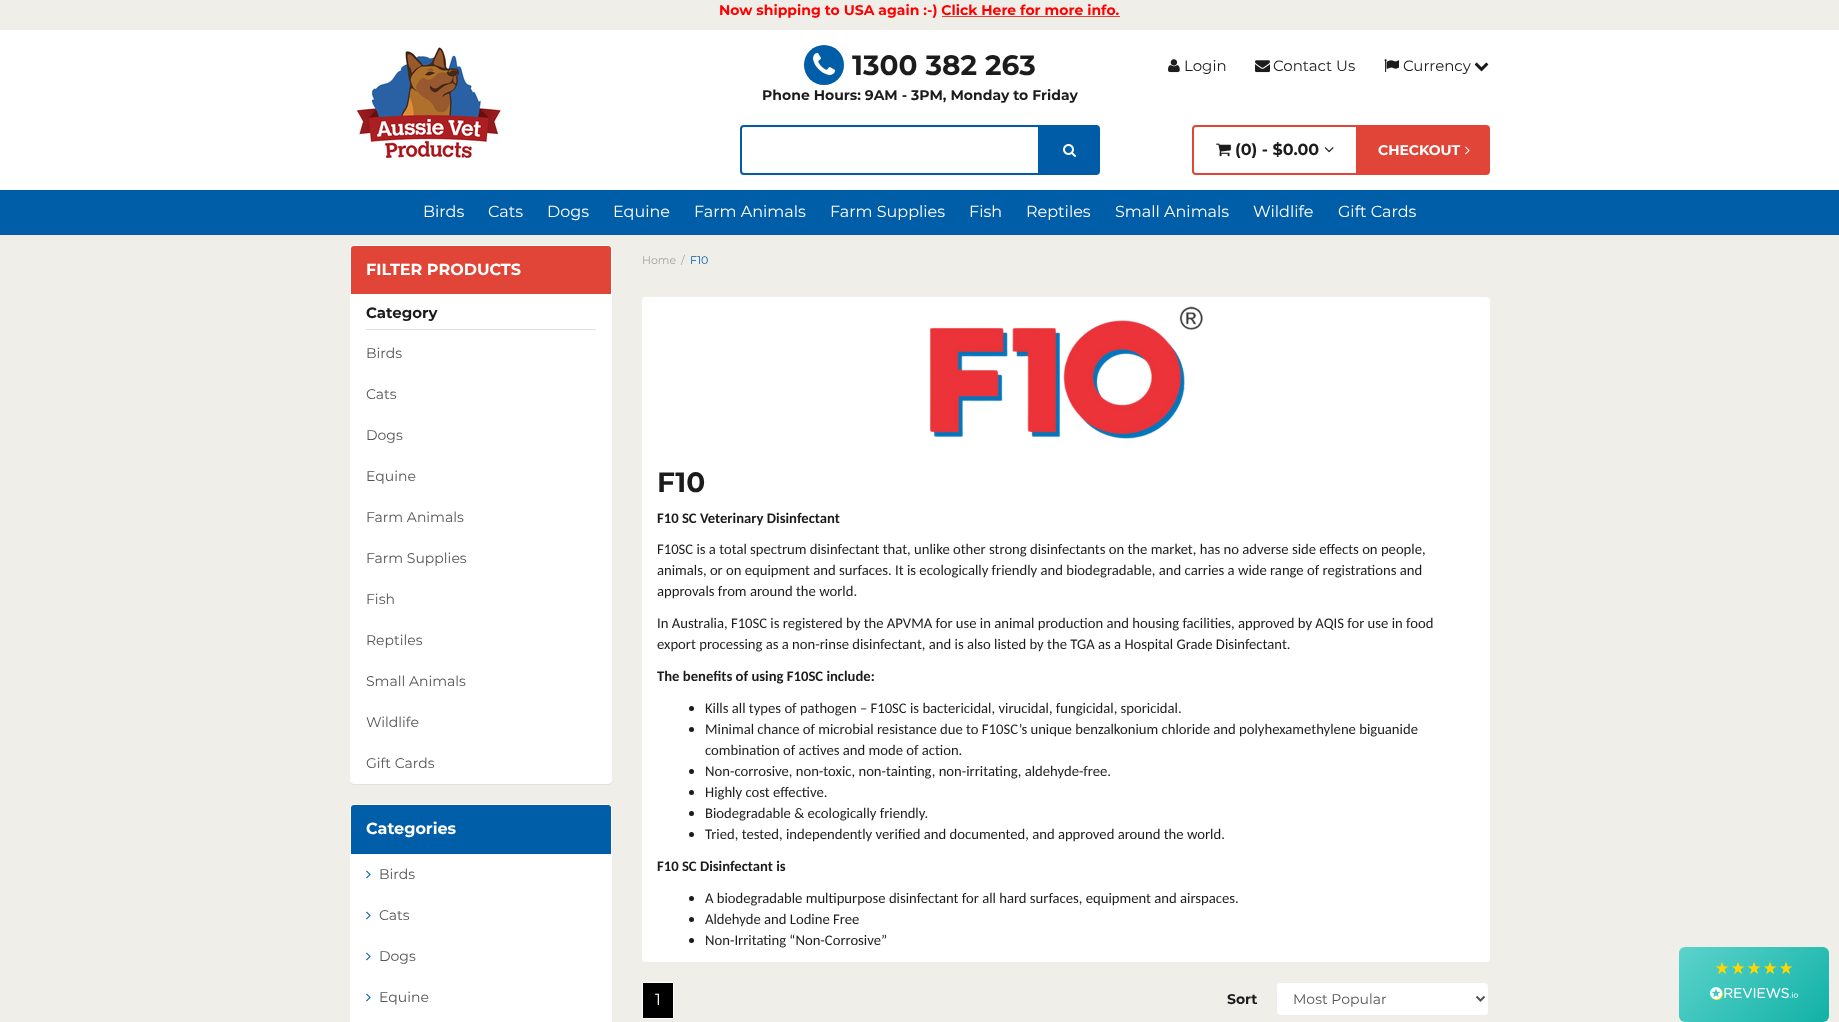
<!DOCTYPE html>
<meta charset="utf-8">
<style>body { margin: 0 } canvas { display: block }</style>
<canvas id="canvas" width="1839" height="1022"></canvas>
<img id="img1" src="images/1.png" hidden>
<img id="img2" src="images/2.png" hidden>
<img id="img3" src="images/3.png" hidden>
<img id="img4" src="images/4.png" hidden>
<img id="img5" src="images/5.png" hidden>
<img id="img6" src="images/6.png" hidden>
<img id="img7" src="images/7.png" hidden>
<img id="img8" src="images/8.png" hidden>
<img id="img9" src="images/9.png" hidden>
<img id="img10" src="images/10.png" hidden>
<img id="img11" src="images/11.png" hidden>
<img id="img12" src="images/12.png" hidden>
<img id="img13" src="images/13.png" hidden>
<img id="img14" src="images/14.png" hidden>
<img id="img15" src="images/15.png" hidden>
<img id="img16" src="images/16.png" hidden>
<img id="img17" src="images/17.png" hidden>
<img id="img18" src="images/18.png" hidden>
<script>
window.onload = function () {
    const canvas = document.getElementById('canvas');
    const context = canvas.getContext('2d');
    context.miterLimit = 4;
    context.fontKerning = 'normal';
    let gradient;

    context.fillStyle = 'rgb(240, 238, 233)';
    context.fillRect(0, 0, 1839, 1022);
    context.fillStyle = 'rgb(255, 255, 255)';
    context.fillRect(0, 30, 1839, 160);
    context.drawImage(document.getElementById('img1'), 356, 47, 145, 112);
    context.fillStyle = 'rgb(0, 93, 168)';
    context.beginPath();
    context.arc(824, 65, 20, 0, 2 * Math.PI);
    context.fill();
    context.drawImage(document.getElementById('img2'), 813, 53, 22, 22);
    context.drawImage(document.getElementById('img3'), 1168, 59, 12, 14);
    context.drawImage(document.getElementById('img4'), 1255, 60, 15, 13);
    context.drawImage(document.getElementById('img5'), 1384, 59, 15, 14);
    context.drawImage(document.getElementById('img6'), 1474, 62, 15, 10);
    context.fillStyle = 'rgb(0, 92, 167)';
    context.beginPath();
    context.roundRect(1040, 126, 59, 48, [0, 3, 3, 0]);
    context.fill();
    context.strokeStyle = 'rgb(0, 92, 167)';
    context.lineWidth = 2;
    context.stroke();
    context.fillStyle = 'rgb(255, 255, 255)';
    context.beginPath();
    context.roundRect(741, 126, 298, 48, [3, 0, 0, 3]);
    context.fill();
    context.stroke();
    context.drawImage(document.getElementById('img7'), 1063, 144, 13, 13);
    context.beginPath();
    context.roundRect(1193, 126, 164, 48, [3, 0, 0, 3]);
    context.strokeStyle = 'rgb(225, 69, 55)';
    context.stroke();
    context.drawImage(document.getElementById('img8'), 1216, 143, 15, 14);
    context.drawImage(document.getElementById('img9'), 1324, 147, 10, 6);
    context.fillStyle = 'rgb(225, 69, 55)';
    context.beginPath();
    context.roundRect(1359, 126, 130, 48, [0, 3, 3, 0]);
    context.fill();
    context.stroke();
    context.drawImage(document.getElementById('img10'), 1465, 146, 5, 9);
    context.fillStyle = 'rgb(0, 93, 168)';
    context.fillRect(0, 190, 1839, 45);
    context.fillStyle = 'rgba(0, 0, 0, 0.05)';
    context.filter = 'blur(0.5px)';
    context.beginPath();
    context.roundRect(350, 246, 262, 539, 4);
    context.fill();
    context.filter = 'none';
    context.fillStyle = 'rgb(255, 255, 255)';
    context.beginPath();
    context.roundRect(350.5, 245.5, 261, 538, 3.5);
    context.fill();
    context.strokeStyle = 'rgb(255, 255, 255)';
    context.lineWidth = 1;
    context.stroke();
    context.fillStyle = 'rgb(225, 69, 55)';
    context.beginPath();
    context.roundRect(351, 246, 260, 48, [3, 3, 0, 0]);
    context.fill();
    context.fillStyle = 'rgb(228, 225, 218)';
    context.fillRect(366, 329, 230, 1);
    context.fillStyle = 'rgb(255, 255, 255)';
    context.beginPath();
    context.roundRect(350.5, 804.5, 261, 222, 3.5);
    context.fill();
    context.stroke();
    context.fillStyle = 'rgb(0, 93, 168)';
    context.beginPath();
    context.roundRect(351, 805, 260, 49, [3, 3, 0, 0]);
    context.fill();
    context.drawImage(document.getElementById('img11'), 366, 870, 5, 9);
    context.drawImage(document.getElementById('img11'), 366, 911, 5, 9);
    context.drawImage(document.getElementById('img11'), 366, 952, 5, 9);
    context.drawImage(document.getElementById('img11'), 366, 993, 5, 9);
    context.fillStyle = 'rgb(255, 255, 255)';
    context.beginPath();
    context.roundRect(642, 297, 848, 665, 4);
    context.fill();
    context.drawImage(document.getElementById('img12'), 929, 306, 274, 133);
    context.fillStyle = 'rgb(28, 28, 28)';
    context.beginPath();
    context.arc(691.5, 708.5, 2.5, 0, 2 * Math.PI);
    context.fill();
    context.beginPath();
    context.arc(691.5, 729.5, 2.5, 0, 2 * Math.PI);
    context.fill();
    context.beginPath();
    context.arc(691.5, 771.5, 2.5, 0, 2 * Math.PI);
    context.fill();
    context.beginPath();
    context.arc(691.5, 792.5, 2.5, 0, 2 * Math.PI);
    context.fill();
    context.beginPath();
    context.arc(691.5, 813.5, 2.5, 0, 2 * Math.PI);
    context.fill();
    context.beginPath();
    context.arc(691.5, 834.5, 2.5, 0, 2 * Math.PI);
    context.fill();
    context.beginPath();
    context.arc(691.5, 898.5, 2.5, 0, 2 * Math.PI);
    context.fill();
    context.beginPath();
    context.arc(691.5, 919.5, 2.5, 0, 2 * Math.PI);
    context.fill();
    context.beginPath();
    context.arc(691.5, 940.5, 2.5, 0, 2 * Math.PI);
    context.fill();
    context.fillStyle = 'rgb(0, 0, 0)';
    context.beginPath();
    context.rect(642.5, 982.5, 31, 36);
    context.fill();
    context.stroke();
    context.fillStyle = 'rgb(255, 255, 255)';
    context.beginPath();
    context.roundRect(1276.5, 982.5, 212, 33, 3.5);
    context.fill();
    context.strokeStyle = 'rgb(237, 237, 237)';
    context.stroke();
    context.beginPath();
    context.moveTo(1476.5, 996.5);
    context.lineTo(1480.5, 1000.5);
    context.lineTo(1484.5, 996.5);
    context.strokeStyle = 'rgb(85, 85, 85)';
    context.lineWidth = 2;
    context.stroke();
    gradient = context.createLinearGradient(1698, 928, 1810, 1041);
    gradient.addColorStop(0, 'rgb(92, 211, 203)');
    gradient.addColorStop(1, 'rgb(17, 177, 167)');
    context.fillStyle = gradient;
    context.beginPath();
    context.roundRect(1679, 947, 150, 75, 6);
    context.fill();
    context.drawImage(document.getElementById('img13'), 1715, 961, 14, 14);
    context.drawImage(document.getElementById('img14'), 1731, 961, 14, 14);
    context.drawImage(document.getElementById('img15'), 1747, 961, 14, 14);
    context.drawImage(document.getElementById('img16'), 1763, 961, 14, 14);
    context.drawImage(document.getElementById('img17'), 1779, 961, 14, 14);
    context.drawImage(document.getElementById('img18'), 1709, 986, 89, 14);
    context.font = 'bold 14px Montserrat';
    context.fillStyle = 'rgb(255, 0, 0)';
    context.fillText('Now shipping to USA again :-) Click Here for more info.', 719, 15);
    context.fillStyle = 'rgb(225, 69, 55)';
    context.fillRect(942, 16, 178, 1);
    context.font = 'bold 28px Montserrat';
    context.fillStyle = 'rgb(28, 28, 28)';
    context.fillText('1300 382 263', 852, 75);
    context.font = 'bold 14px Montserrat';
    context.fillText('Phone Hours: 9AM - 3PM, Monday to Friday', 762, 100);
    context.font = '15px Montserrat';
    context.fillText('Login', 1184, 71);
    context.fillText('Contact Us', 1273, 71);
    context.fillText('Currency', 1403, 71);
    context.font = 'bold 16px Montserrat';
    context.fillText('(0) - $0.00', 1235, 155);
    context.font = 'bold 14px Montserrat';
    context.fillStyle = 'rgb(255, 255, 255)';
    context.fillText('CHECKOUT', 1378, 155);
    context.font = '16px Montserrat';
    context.fillText('Birds', 423, 217);
    context.fillText('Cats', 488, 217);
    context.fillText('Dogs', 547, 217);
    context.fillText('Equine', 613, 217);
    context.fillText('Farm Animals', 694, 217);
    context.fillText('Farm Supplies', 830, 217);
    context.fillText('Fish', 969, 217);
    context.fillText('Reptiles', 1026, 217);
    context.fillText('Small Animals', 1115, 217);
    context.fillText('Wildlife', 1253, 217);
    context.fillText('Gift Cards', 1338, 217);
    context.font = 'bold 16px Montserrat';
    context.fillText('FILTER PRODUCTS', 366, 275);
    context.font = 'bold 15px Montserrat';
    context.fillStyle = 'rgb(28, 28, 28)';
    context.fillText('Category', 366, 318);
    context.font = '14px Montserrat';
    context.fillStyle = 'rgb(85, 85, 85)';
    context.fillText('Birds', 366, 358);
    context.fillText('Cats', 366, 399);
    context.fillText('Dogs', 366, 440);
    context.fillText('Equine', 366, 481);
    context.fillText('Farm Animals', 366, 522);
    context.fillText('Farm Supplies', 366, 563);
    context.fillText('Fish', 366, 604);
    context.fillText('Reptiles', 366, 645);
    context.fillText('Small Animals', 366, 686);
    context.fillText('Wildlife', 366, 727);
    context.fillText('Gift Cards', 366, 768);
    context.font = 'bold 16px Montserrat';
    context.fillStyle = 'rgb(255, 255, 255)';
    context.fillText('Categories', 366, 834);
    context.font = '14px Montserrat';
    context.fillStyle = 'rgb(85, 85, 85)';
    context.fillText('Birds', 379, 879);
    context.fillText('Cats', 379, 920);
    context.fillText('Dogs', 379, 961);
    context.fillText('Equine', 379, 1002);
    context.font = '11px Montserrat';
    context.fillStyle = 'rgb(164, 164, 164)';
    context.fillText('Home', 642, 264);
    context.fillText('/', 681, 264);
    context.fillStyle = 'rgb(0, 93, 168)';
    context.fillText('F10', 690, 264);
    context.font = 'bold 28px Montserrat';
    context.fillStyle = 'rgb(28, 28, 28)';
    context.fillText('F10', 657, 492);
    context.font = 'bold 14.67px Carlito';
    context.fillText('F10 SC Veterinary Disinfectant', 657, 523);
    context.font = '14.67px Carlito';
    context.fillText('F10SC is a total spectrum disinfectant that, unlike other strong disinfectants on the market, has no adverse side effects on people,', 657, 554);
    context.fillText('animals, or on equipment and surfaces. It is ecologically friendly and biodegradable, and carries a wide range of registrations and', 657, 575);
    context.fillText('approvals from around the world.', 657, 596);
    context.fillText('In Australia, F10SC is registered by the APVMA for use in animal production and housing facilities, approved by AQIS for use in food', 657, 628);
    context.fillText('export processing as a non-rinse disinfectant, and is also listed by the TGA as a Hospital Grade Disinfectant.', 657, 649);
    context.font = 'bold 14.67px Carlito';
    context.fillText('The benefits of using F10SC include:', 657, 681);
    context.font = '14.67px Carlito';
    context.fillText('Kills all types of pathogen – F10SC is bactericidal, virucidal, fungicidal, sporicidal.', 705, 713);
    context.fillText('Minimal chance of microbial resistance due to F10SC’s unique benzalkonium chloride and polyhexamethylene biguanide', 705, 734);
    context.fillText('combination of actives and mode of action.', 705, 755);
    context.fillText('Non-corrosive, non-toxic, non-tainting, non-irritating, aldehyde-free.', 705, 776);
    context.fillText('Highly cost effective.', 705, 797);
    context.fillText('Biodegradable & ecologically friendly.', 705, 818);
    context.fillText('Tried, tested, independently verified and documented, and approved around the world.', 705, 839);
    context.font = 'bold 14.67px Carlito';
    context.fillText('F10 SC Disinfectant is', 657, 871);
    context.font = '14.67px Carlito';
    context.fillText('A biodegradable multipurpose disinfectant for all hard surfaces, equipment and airspaces.', 705, 903);
    context.fillText('Aldehyde and Lodine Free', 705, 924);
    context.fillText('Non-Irritating “Non-Corrosive”', 705, 945);
    context.font = '16px Montserrat';
    context.fillStyle = 'rgb(255, 255, 255)';
    context.fillText('1', 655, 1005);
    context.font = 'bold 14px Montserrat';
    context.fillStyle = 'rgb(28, 28, 28)';
    context.fillText('Sort', 1227, 1004);
    context.font = '14px Montserrat';
    context.fillStyle = 'rgb(85, 85, 85)';
    context.fillText('Most Popular', 1293, 1004);
};
</script>
